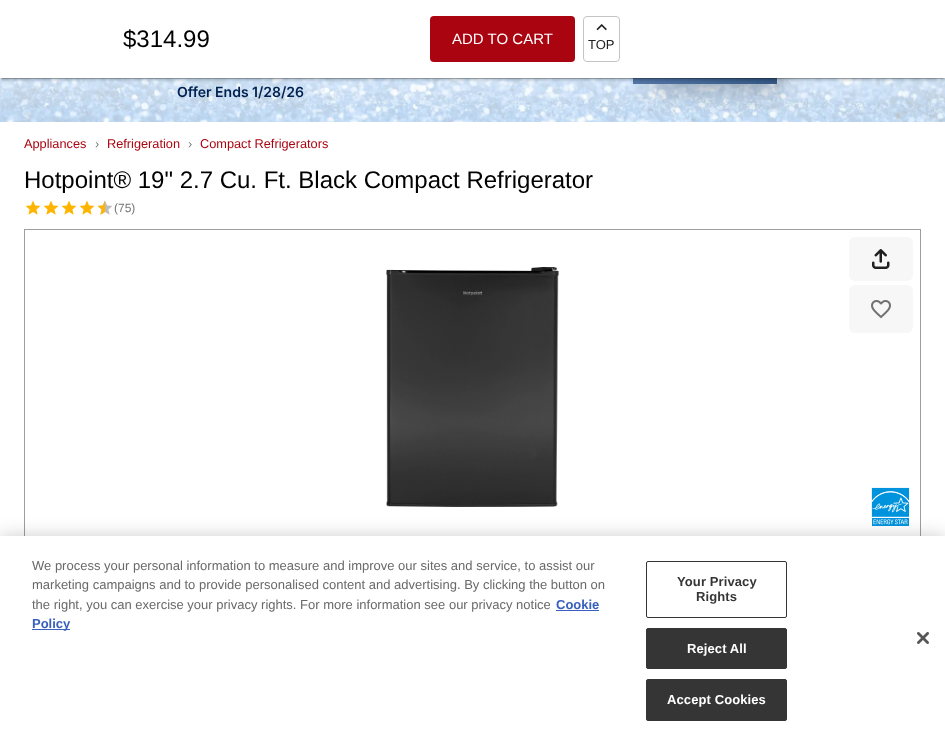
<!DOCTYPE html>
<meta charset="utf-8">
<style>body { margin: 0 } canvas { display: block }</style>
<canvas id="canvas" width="945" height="741"></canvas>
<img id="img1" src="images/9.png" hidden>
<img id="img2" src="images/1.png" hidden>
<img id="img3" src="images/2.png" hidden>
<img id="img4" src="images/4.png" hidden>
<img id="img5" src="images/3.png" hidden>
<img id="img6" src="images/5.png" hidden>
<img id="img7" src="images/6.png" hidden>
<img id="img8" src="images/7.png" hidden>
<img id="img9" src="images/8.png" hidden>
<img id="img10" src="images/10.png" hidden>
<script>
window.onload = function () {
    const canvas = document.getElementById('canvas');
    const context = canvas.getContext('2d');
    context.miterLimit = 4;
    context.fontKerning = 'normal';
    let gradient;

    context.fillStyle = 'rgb(255, 255, 255)';
    context.fillRect(0, 0, 945, 741);
    context.drawImage(document.getElementById('img1'), 0, 78, 945, 44);
    context.fillStyle = 'rgba(0, 0, 0, 0.3)';
    context.filter = 'blur(13px)';
    context.beginPath();
    context.rect(654, 57, 128, 32);
    context.fill();
    context.filter = 'none';
    gradient = context.createLinearGradient(691, 103, 719, 17);
    gradient.addColorStop(0, 'rgb(84, 119, 167)');
    gradient.addColorStop(1, 'rgb(22, 57, 98)');
    context.fillStyle = gradient;
    context.fillRect(633, 78, 144, 6);
    context.fillStyle = 'rgba(0, 0, 0, 0.12)';
    context.filter = 'blur(2.5px)';
    context.beginPath();
    context.rect(0, 1, 945, 78);
    context.fill();
    context.filter = 'none';
    context.fillStyle = 'rgba(0, 0, 0, 0.14)';
    context.filter = 'blur(1px)';
    context.beginPath();
    context.rect(0, 2, 945, 78);
    context.fill();
    context.filter = 'none';
    context.fillStyle = 'rgba(0, 0, 0, 0.2)';
    context.filter = 'blur(0.5px)';
    context.beginPath();
    context.rect(2, 5, 941, 74);
    context.fill();
    context.filter = 'none';
    context.fillStyle = 'rgb(255, 255, 255)';
    context.fillRect(0, 0, 945, 78);
    context.fillStyle = 'rgb(170, 4, 16)';
    context.beginPath();
    context.roundRect(430, 16, 145, 46, 4);
    context.fill();
    context.beginPath();
    context.roundRect(583.5, 16.5, 36, 45, 3.5);
    context.strokeStyle = 'rgb(196, 196, 196)';
    context.stroke();
    context.drawImage(document.getElementById('img2'), 596, 24, 11, 7);
    context.drawImage(document.getElementById('img3'), 25, 200, 16, 15);
    context.drawImage(document.getElementById('img3'), 43, 200, 16, 15);
    context.drawImage(document.getElementById('img3'), 61, 200, 16, 15);
    context.drawImage(document.getElementById('img3'), 79, 200, 16, 15);
    context.drawImage(document.getElementById('img4'), 98, 201, 14, 14);
    context.drawImage(document.getElementById('img5'), 97, 200, 8, 15);
    context.strokeStyle = 'rgb(158, 158, 158)';
    context.strokeRect(24.5, 229.5, 896, 319);
    context.drawImage(document.getElementById('img6'), 386, 267, 173, 240);
    context.drawImage(document.getElementById('img7'), 871, 487, 39, 39);
    context.fillStyle = 'rgb(247, 247, 247)';
    context.beginPath();
    context.roundRect(849, 237, 64, 44, 6);
    context.fill();
    context.drawImage(document.getElementById('img8'), 872, 249, 18, 20);
    context.beginPath();
    context.roundRect(849, 285, 64, 48, 6);
    context.fill();
    context.drawImage(document.getElementById('img9'), 871, 300, 20, 19);
    context.fillStyle = 'rgba(0, 0, 0, 0.2)';
    context.filter = 'blur(9px)';
    context.beginPath();
    context.rect(0, 536, 945, 205);
    context.fill();
    context.filter = 'none';
    context.fillStyle = 'rgb(255, 255, 255)';
    context.fillRect(0, 536, 945, 205);
    context.fillStyle = 'rgb(56, 96, 190)';
    context.fillRect(556, 610, 43, 1);
    context.fillRect(32, 629, 38, 1);
    context.beginPath();
    context.roundRect(646.5, 561.5, 140, 56, 1.5);
    context.strokeStyle = 'rgb(53, 53, 53)';
    context.stroke();
    context.fillStyle = 'rgb(53, 53, 53)';
    context.beginPath();
    context.roundRect(646.5, 628.5, 140, 40, 1.5);
    context.fill();
    context.stroke();
    context.beginPath();
    context.roundRect(646.5, 679.5, 140, 41, 1.5);
    context.fill();
    context.stroke();
    context.drawImage(document.getElementById('img10'), 917, 632, 12, 12);
    context.font = '24px Liberation Sans';
    context.fillStyle = 'rgb(0, 0, 0)';
    context.fillText('$314.99', 123, 47);
    context.font = '15px Liberation Sans';
    context.fillStyle = 'rgb(255, 255, 255)';
    context.fillText('ADD TO CART', 452, 44);
    context.font = '13px Liberation Sans';
    context.fillStyle = 'rgb(33, 33, 33)';
    context.fillText('TOP', 588, 49);
    context.font = '12.75px Liberation Sans';
    context.fillStyle = 'rgb(170, 4, 16)';
    context.fillText('Appliances', 24, 148);
    context.fillStyle = 'rgb(117, 117, 117)';
    context.fillText('›', 95, 148);
    context.fillStyle = 'rgb(170, 4, 16)';
    context.fillText('Refrigeration', 107, 148);
    context.fillStyle = 'rgb(117, 117, 117)';
    context.fillText('›', 188, 148);
    context.fillStyle = 'rgb(170, 4, 16)';
    context.fillText('Compact Refrigerators', 200, 148);
    context.font = '24px Liberation Sans';
    context.fillStyle = 'rgb(0, 0, 0)';
    context.fillText('Hotpoint® 19" 2.7 Cu. Ft. Black Compact Refrigerator', 24, 188);
    context.font = '12px Liberation Sans';
    context.fillStyle = 'rgb(117, 117, 117)';
    context.fillText('(75)', 114, 212);
    context.font = '600 14px Inter';
    context.fillStyle = 'rgb(0, 34, 80)';
    context.fillText('Offer Ends 1/28/26', 177, 97);
    context.font = '13px Liberation Sans';
    context.fillStyle = 'rgb(105, 105, 105)';
    context.fillText('We process your personal information to measure and improve our sites and service, to assist our', 32, 570);
    context.fillText('marketing campaigns and to provide personalised content and advertising. By clicking the button on', 32, 589);
    context.fillText('the right, you can exercise your privacy rights. For more information see our privacy notice', 32, 609);
    context.font = 'bold 13px Liberation Sans';
    context.fillStyle = 'rgb(56, 96, 190)';
    context.fillText('Cookie', 556, 609);
    context.fillText('Policy', 32, 628);
    context.letterSpacing = '0.1px';
    context.fillStyle = 'rgb(53, 53, 53)';
    context.fillText('Your Privacy', 677, 586);
    context.fillText('Rights', 696, 601);
    context.fillStyle = 'rgb(255, 255, 255)';
    context.fillText('Reject All', 687, 653);
    context.fillText('Accept Cookies', 667, 704);
};
</script>
